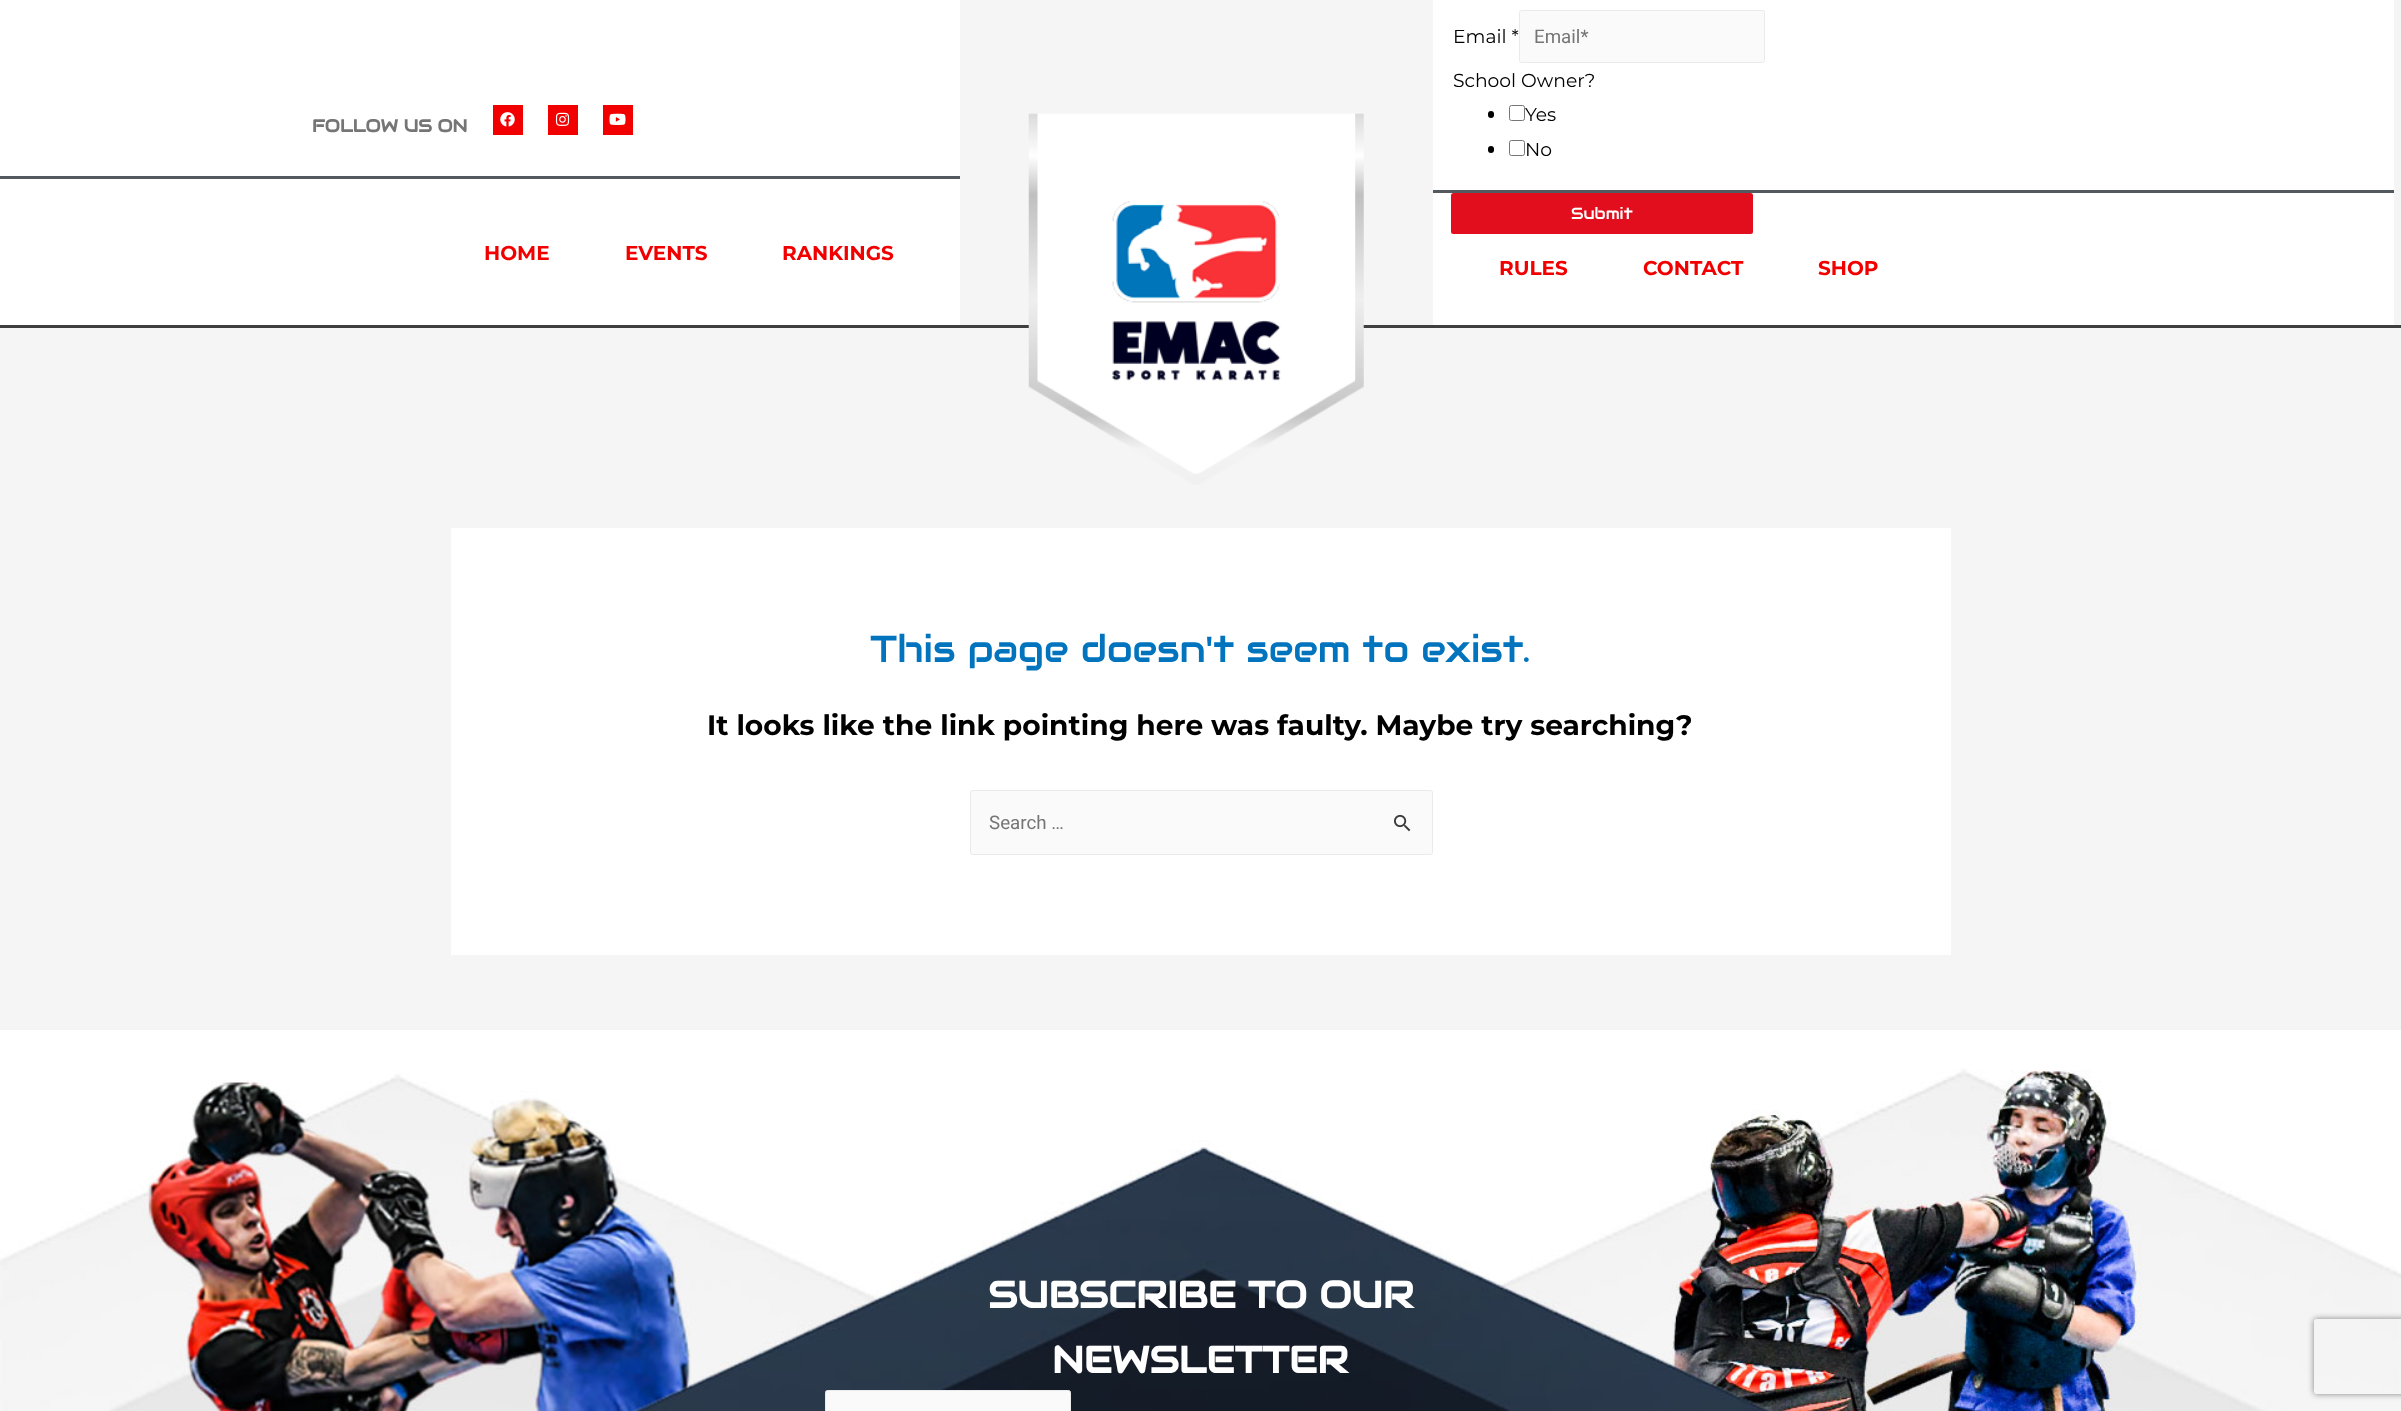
<!DOCTYPE html>
<meta charset="utf-8">
<style>body { margin: 0 } canvas { display: block }</style>
<canvas id="canvas" width="2401" height="1411"></canvas>
<img id="img1" src="images/1.png" hidden>
<img id="img2" src="images/2.png" hidden>
<img id="img3" src="images/3.png" hidden>
<img id="img4" src="images/4.png" hidden>
<img id="img5" src="images/5.png" hidden>
<img id="img6" src="images/6.png" hidden>
<img id="img7" src="images/7.png" hidden>
<script>
window.onload = function () {
    const canvas = document.getElementById('canvas');
    const context = canvas.getContext('2d');
    context.miterLimit = 4;
    context.fontKerning = 'normal';

    context.fillStyle = 'rgb(245, 245, 245)';
    context.fillRect(0, 0, 2401, 1411);
    context.fillStyle = 'rgb(63, 63, 63)';
    context.fillRect(0, 325, 2401, 3);
    context.fillStyle = 'rgb(255, 255, 255)';
    context.fillRect(0, 0, 960, 325);
    context.fillStyle = 'rgb(84, 89, 95)';
    context.fillRect(0, 176, 960, 3);
    context.fillStyle = 'rgb(242, 0, 0)';
    context.fillRect(493, 105, 30, 30);
    context.drawImage(document.getElementById('img1'), 500, 112, 15, 15);
    context.fillRect(548, 105, 30, 30);
    context.drawImage(document.getElementById('img2'), 555, 112, 15, 14);
    context.fillRect(603, 105, 30, 30);
    context.drawImage(document.getElementById('img3'), 609, 113, 17, 12);
    context.drawImage(document.getElementById('img4'), 1028, 113, 336, 372);
    context.drawImage(document.getElementById('img5'), 1112, 201, 169, 180);
    context.fillStyle = 'rgb(255, 255, 255)';
    context.fillRect(1433, 0, 961, 325);
    context.fillStyle = 'rgb(84, 89, 95)';
    context.fillRect(1433, 190, 961, 3);
    context.fillStyle = 'rgb(250, 250, 250)';
    context.beginPath();
    context.roundRect(1519.5, 10.5, 245, 52, 2);
    context.fill();
    context.strokeStyle = 'rgb(234, 234, 234)';
    context.stroke();
    context.fillStyle = 'rgb(0, 0, 0)';
    context.beginPath();
    context.roundRect(1488, 111, 6, 7, 3);
    context.fill();
    context.beginPath();
    context.roundRect(1509.5, 105.5, 15, 15, 2);
    context.strokeStyle = 'rgb(118, 118, 118)';
    context.stroke();
    context.beginPath();
    context.roundRect(1488, 146, 6, 7, 3);
    context.fill();
    context.beginPath();
    context.roundRect(1509.5, 140.5, 15, 15, 2);
    context.stroke();
    context.fillStyle = 'rgb(226, 14, 29)';
    context.beginPath();
    context.roundRect(1451, 193, 302, 41, 2.5);
    context.fill();
    context.fillStyle = 'rgb(255, 255, 255)';
    context.fillRect(451, 528, 1500, 427);
    context.fillStyle = 'rgb(250, 250, 250)';
    context.beginPath();
    context.roundRect(970.5, 790.5, 462, 64, 2);
    context.fill();
    context.strokeStyle = 'rgb(234, 234, 234)';
    context.stroke();
    context.drawImage(document.getElementById('img6'), 1394, 814, 17, 18);
    context.drawImage(document.getElementById('img7'), 0, 1030, 2401, 381);
    context.beginPath();
    context.roundRect(825.5, 1390.5, 245, 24, 2);
    context.fill();
    context.stroke();
    context.save();
    context.beginPath();
    context.moveTo(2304, 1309);
    context.lineTo(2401, 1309);
    context.lineTo(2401, 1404);
    context.lineTo(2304, 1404);
    context.closePath();
    context.moveTo(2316.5, 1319);
    context.lineTo(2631.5, 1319);
    context.bezierCurveTo(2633, 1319, 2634, 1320, 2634, 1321.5);
    context.lineTo(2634, 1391.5);
    context.bezierCurveTo(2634, 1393, 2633, 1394, 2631.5, 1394);
    context.lineTo(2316.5, 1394);
    context.bezierCurveTo(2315, 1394, 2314, 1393, 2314, 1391.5);
    context.lineTo(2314, 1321.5);
    context.bezierCurveTo(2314, 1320, 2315, 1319, 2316.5, 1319);
    context.closePath();
    context.clip('evenodd');
    context.fillStyle = 'rgb(128, 128, 128)';
    context.filter = 'blur(3px)';
    context.beginPath();
    context.roundRect(2314, 1319, 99, 75, 2.5);
    context.fill();
    context.filter = 'none';
    context.restore();
    context.font = 'bold 17.5px Audiowide';
    context.fillStyle = 'rgb(117, 117, 117)';
    context.fillText('FOLLOW US ON', 312, 132);
    context.font = 'bold 20px Montserrat';
    context.fillStyle = 'rgb(242, 0, 0)';
    context.fillText('HOME', 484, 260);
    context.fillText('EVENTS', 625, 260);
    context.fillText('RANKINGS', 782, 260);
    context.font = '18.75px Montserrat';
    context.fillStyle = 'rgb(0, 0, 0)';
    context.fillText('Email *', 1453, 43);
    context.font = '18.75px Roboto';
    context.fillStyle = 'rgb(117, 117, 117)';
    context.fillText('Email*', 1534, 43);
    context.font = '18.75px Montserrat';
    context.fillStyle = 'rgb(0, 0, 0)';
    context.fillText('School Owner?', 1453, 87);
    context.fillText('Yes', 1525, 121);
    context.fillText('No', 1525, 156);
    context.font = '16px Audiowide';
    context.fillStyle = 'rgb(255, 255, 255)';
    context.fillText('Submit', 1571, 219);
    context.font = 'bold 20px Montserrat';
    context.fillStyle = 'rgb(242, 0, 0)';
    context.fillText('RULES', 1499, 275);
    context.fillText('CONTACT', 1643, 275);
    context.fillText('SHOP', 1818, 275);
    context.font = '37.5px Audiowide';
    context.fillStyle = 'rgb(2, 116, 190)';
    context.fillText('This page doesn\'t seem to exist.', 870, 662);
    context.font = 'bold 28.1px Montserrat';
    context.fillStyle = 'rgb(0, 0, 0)';
    context.fillText('It looks like the link pointing here was faulty. Maybe try searching?', 707, 735);
    context.font = '18.75px Roboto';
    context.fillStyle = 'rgb(117, 117, 117)';
    context.fillText('Search …', 989, 829);
    context.font = 'bold 37.5px Audiowide';
    context.fillStyle = 'rgb(255, 255, 255)';
    context.fillText('SUBSCRIBE TO OUR', 988, 1308);
    context.fillText('NEWSLETTER', 1052, 1373);
};
</script>
